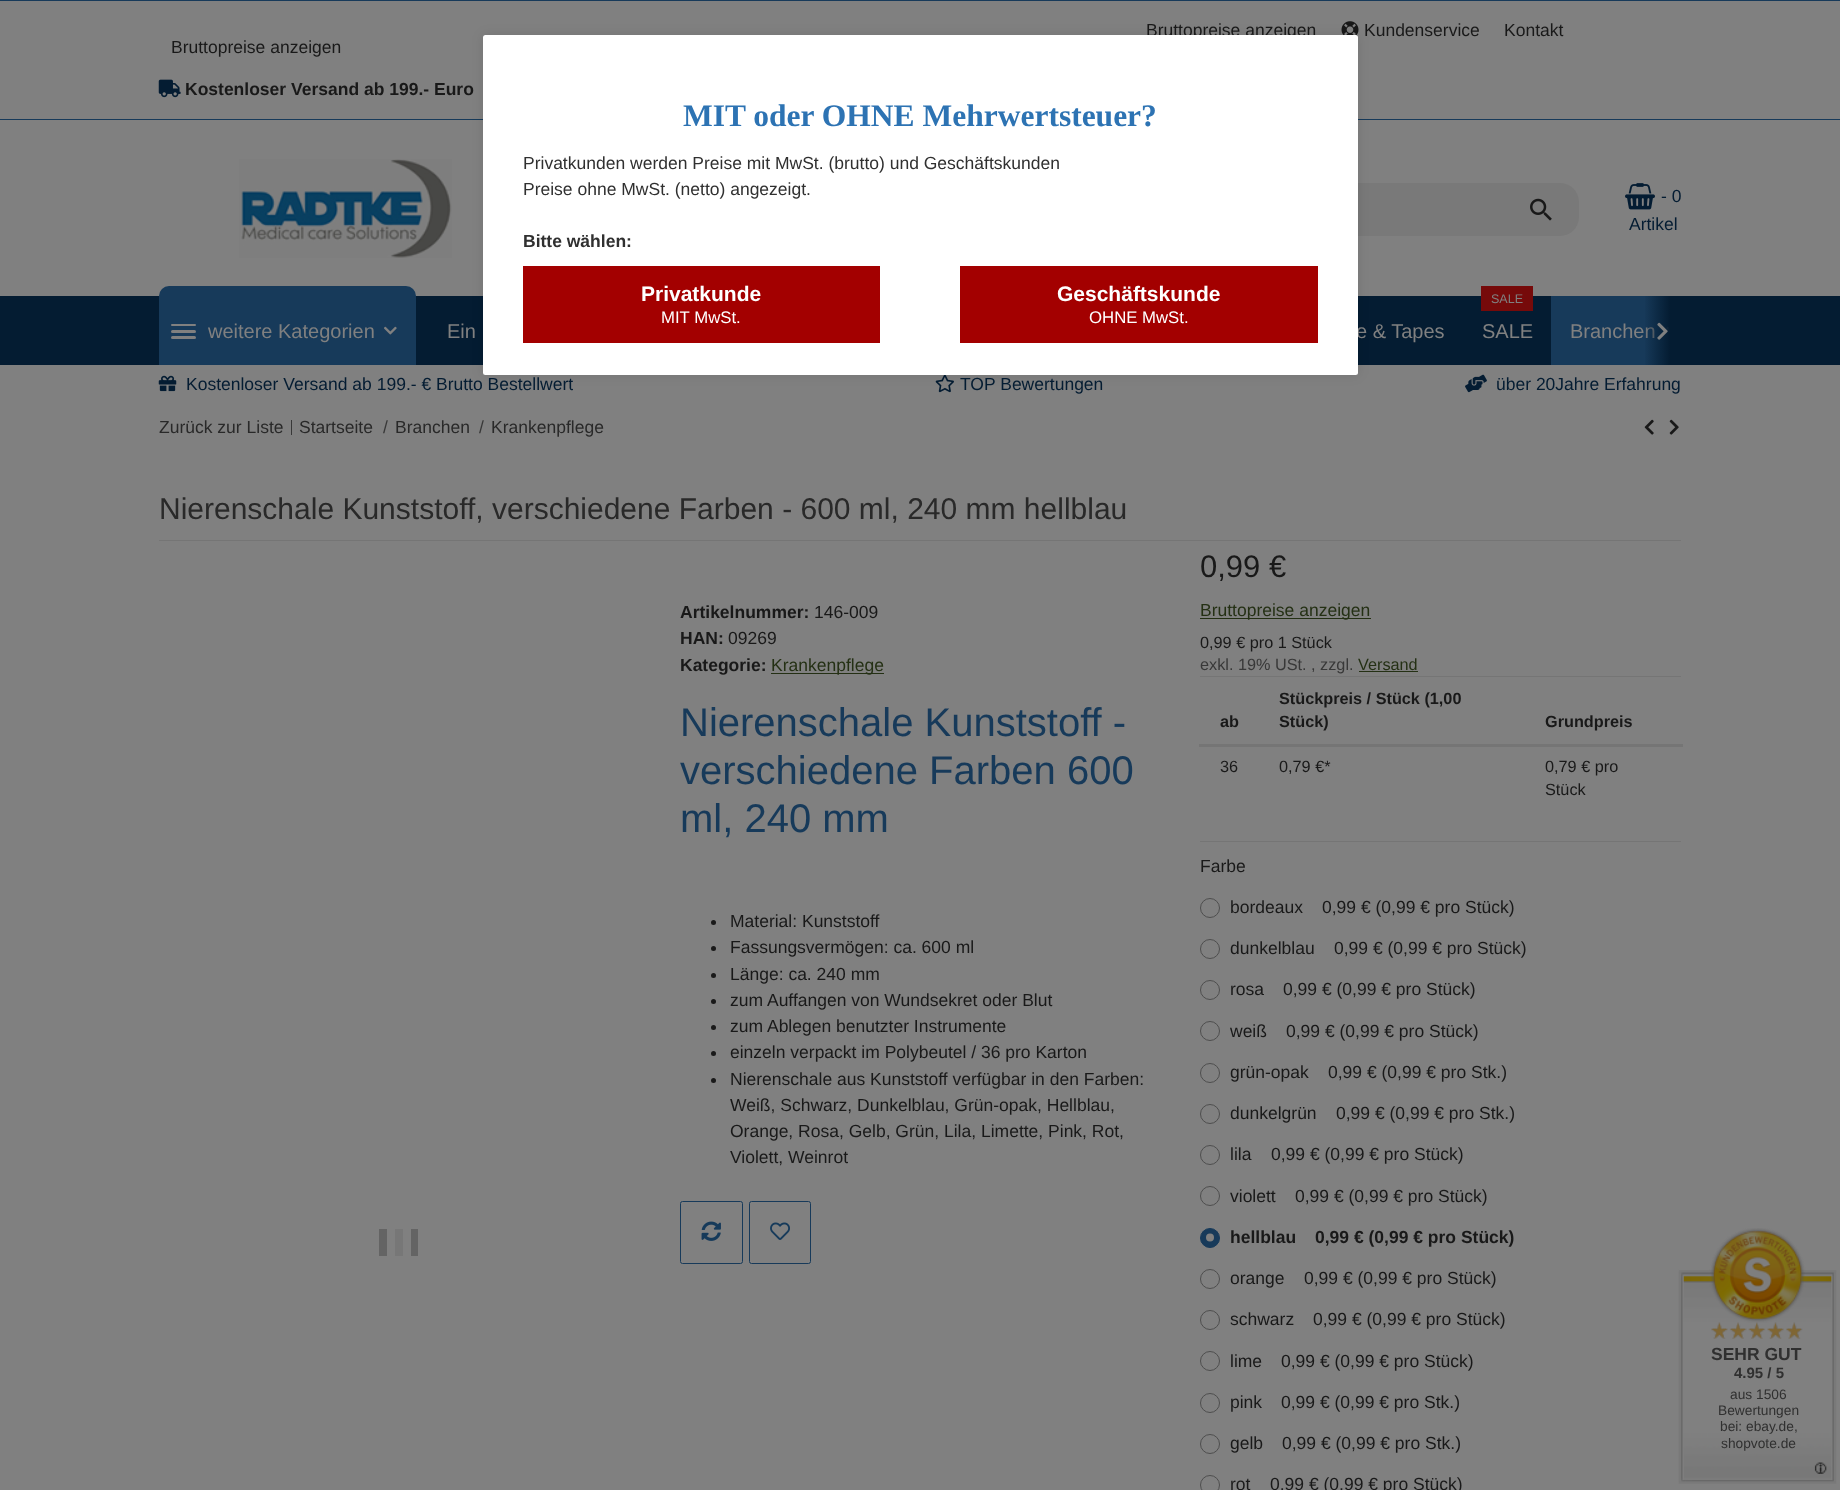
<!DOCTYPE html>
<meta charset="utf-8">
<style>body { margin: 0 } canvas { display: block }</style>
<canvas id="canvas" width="1840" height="1490"></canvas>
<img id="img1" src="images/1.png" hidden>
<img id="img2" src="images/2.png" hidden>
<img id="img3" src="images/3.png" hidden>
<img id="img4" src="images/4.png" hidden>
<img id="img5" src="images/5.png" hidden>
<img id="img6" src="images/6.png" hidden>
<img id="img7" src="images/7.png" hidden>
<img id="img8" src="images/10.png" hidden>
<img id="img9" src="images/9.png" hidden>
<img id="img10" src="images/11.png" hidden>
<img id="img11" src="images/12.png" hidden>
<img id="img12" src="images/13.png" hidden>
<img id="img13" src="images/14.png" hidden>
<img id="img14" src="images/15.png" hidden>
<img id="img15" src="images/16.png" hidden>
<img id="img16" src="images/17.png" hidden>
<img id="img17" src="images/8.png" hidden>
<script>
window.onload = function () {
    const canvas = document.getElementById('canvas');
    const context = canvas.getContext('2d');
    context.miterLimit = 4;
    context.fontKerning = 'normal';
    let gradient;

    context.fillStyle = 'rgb(128, 128, 128)';
    context.fillRect(0, 0, 1840, 1490);
    context.fillStyle = 'rgb(23, 58, 90)';
    context.fillRect(0, 0, 1840, 1);
    context.fillRect(0, 119, 1840, 1);
    context.drawImage(document.getElementById('img1'), 1341, 21, 18, 15);
    context.drawImage(document.getElementById('img2'), 158, 79, 23, 19);
    context.drawImage(document.getElementById('img3'), 239, 159, 213, 99);
    context.fillStyle = 'rgb(121, 121, 121)';
    context.beginPath();
    context.roundRect(1264, 183, 315, 53, 19);
    context.fill();
    context.drawImage(document.getElementById('img4'), 1530, 198, 22, 23);
    context.drawImage(document.getElementById('img5'), 1625, 183, 30, 27);
    context.fillStyle = 'rgb(4, 28, 50)';
    context.fillRect(0, 296, 1840, 69);
    context.fillStyle = 'rgb(23, 58, 90)';
    context.beginPath();
    context.roundRect(159, 286, 257, 79, [10, 10, 0, 0]);
    context.fill();
    context.fillStyle = 'rgb(128, 128, 128)';
    context.beginPath();
    context.roundRect(171, 324, 25, 2, 1);
    context.fill();
    context.beginPath();
    context.roundRect(171, 330, 25, 3, 1.5);
    context.fill();
    context.beginPath();
    context.roundRect(171, 336, 25, 3, 1.5);
    context.fill();
    context.drawImage(document.getElementById('img6'), 384, 326, 13, 9);
    context.fillStyle = 'rgb(118, 10, 10)';
    context.fillRect(1481, 286, 52, 25);
    context.fillStyle = 'rgb(23, 58, 90)';
    context.fillRect(1551, 296, 119, 69);
    context.drawImage(document.getElementById('img7'), 1666, 326, 4, 6);
    context.drawImage(document.getElementById('img8'), 935, 375, 19, 18);
    context.fillStyle = 'rgba(0, 0, 0, 0.1)';
    context.filter = 'blur(6px)';
    context.beginPath();
    context.roundRect(483, 35, 875, 340, 2.5);
    context.fill();
    context.filter = 'none';
    context.drawImage(document.getElementById('img9'), 158, 375, 19, 17);
    context.drawImage(document.getElementById('img10'), 1465, 374, 22, 19);
    context.fillStyle = 'rgb(56, 56, 56)';
    context.fillRect(291, 420, 1, 15);
    context.drawImage(document.getElementById('img11'), 1644, 419, 10, 16);
    context.drawImage(document.getElementById('img12'), 1669, 419, 10, 16);
    context.fillStyle = 'rgb(117, 117, 117)';
    context.fillRect(159, 540, 1522, 1);
    context.fillStyle = 'rgb(100, 100, 100)';
    context.fillRect(379, 1229, 8, 27);
    context.fillStyle = 'rgb(119, 119, 119)';
    context.fillRect(395, 1229, 8, 27);
    context.fillStyle = 'rgb(100, 100, 100)';
    context.fillRect(411, 1229, 7, 27);
    context.fillStyle = 'rgb(36, 48, 20)';
    context.fillRect(771, 673, 113, 1);
    context.fillStyle = 'rgb(25, 25, 25)';
    context.beginPath();
    context.arc(713.5, 922.5, 2.5, 0, 2 * Math.PI);
    context.fill();
    context.beginPath();
    context.arc(713.5, 948.5, 2.5, 0, 2 * Math.PI);
    context.fill();
    context.beginPath();
    context.arc(713.5, 975.5, 2.5, 0, 2 * Math.PI);
    context.fill();
    context.beginPath();
    context.arc(713.5, 1001.5, 2.5, 0, 2 * Math.PI);
    context.fill();
    context.beginPath();
    context.arc(713.5, 1027.5, 2.5, 0, 2 * Math.PI);
    context.fill();
    context.beginPath();
    context.arc(713.5, 1053.5, 2.5, 0, 2 * Math.PI);
    context.fill();
    context.beginPath();
    context.arc(713.5, 1080.5, 2.5, 0, 2 * Math.PI);
    context.fill();
    context.beginPath();
    context.roundRect(680.5, 1201.5, 62, 62, 2);
    context.strokeStyle = 'rgb(23, 58, 90)';
    context.stroke();
    context.drawImage(document.getElementById('img13'), 701, 1221, 20, 20);
    context.beginPath();
    context.roundRect(749.5, 1201.5, 61, 62, 2);
    context.stroke();
    context.drawImage(document.getElementById('img14'), 770, 1222, 20, 18);
    context.fillStyle = 'rgb(117, 117, 117)';
    context.fillRect(1200, 841, 481, 1);
    context.fillStyle = 'rgb(36, 48, 20)';
    context.fillRect(1200, 618, 171, 1);
    context.fillRect(1359, 671, 59, 1);
    context.fillStyle = 'rgb(117, 117, 117)';
    context.fillRect(1200, 676, 481, 1);
    context.fillRect(1199, 744, 484, 3);
    context.beginPath();
    context.arc(1210, 908, 9.5, 0, 2 * Math.PI);
    context.strokeStyle = 'rgb(78, 78, 78)';
    context.stroke();
    context.beginPath();
    context.arc(1210, 949, 9.5, 0, 2 * Math.PI);
    context.stroke();
    context.beginPath();
    context.arc(1210, 990, 9.5, 0, 2 * Math.PI);
    context.stroke();
    context.beginPath();
    context.arc(1210, 1031, 9.5, 0, 2 * Math.PI);
    context.stroke();
    context.beginPath();
    context.arc(1210, 1073, 9.5, 0, 2 * Math.PI);
    context.stroke();
    context.beginPath();
    context.arc(1210, 1114, 9.5, 0, 2 * Math.PI);
    context.stroke();
    context.beginPath();
    context.arc(1210, 1155, 9.5, 0, 2 * Math.PI);
    context.stroke();
    context.beginPath();
    context.arc(1210, 1196, 9.5, 0, 2 * Math.PI);
    context.stroke();
    context.fillStyle = 'rgb(23, 58, 90)';
    context.beginPath();
    context.arc(1210, 1238, 9.5, 0, 2 * Math.PI);
    context.fill();
    context.strokeStyle = 'rgb(23, 58, 90)';
    context.stroke();
    context.fillStyle = 'rgb(128, 128, 128)';
    context.beginPath();
    context.arc(1210, 1237.5, 4, 0, 2 * Math.PI);
    context.fill();
    context.beginPath();
    context.arc(1210, 1279, 9.5, 0, 2 * Math.PI);
    context.strokeStyle = 'rgb(78, 78, 78)';
    context.stroke();
    context.beginPath();
    context.arc(1210, 1320, 9.5, 0, 2 * Math.PI);
    context.stroke();
    context.beginPath();
    context.arc(1210, 1361, 9.5, 0, 2 * Math.PI);
    context.stroke();
    context.beginPath();
    context.arc(1210, 1403, 9.5, 0, 2 * Math.PI);
    context.stroke();
    context.beginPath();
    context.arc(1210, 1444, 9.5, 0, 2 * Math.PI);
    context.stroke();
    context.beginPath();
    context.arc(1210, 1485, 9.5, 0, 2 * Math.PI);
    context.stroke();
    context.drawImage(document.getElementById('img15'), 1678, 1228, 159, 256);
    context.drawImage(document.getElementById('img16'), 1711, 1322, 91, 17);
    context.font = '17.5px Liberation Sans';
    context.fillStyle = 'rgb(25, 25, 25)';
    context.fillText('Bruttopreise anzeigen', 1146, 36);
    context.fillText('Kundenservice', 1364, 36);
    context.fillText('Kontakt', 1504, 36);
    context.fillText('Bruttopreise anzeigen', 171, 53);
    context.font = 'bold 17.5px Liberation Sans';
    context.fillText('Kostenloser Versand ab 199.- Euro', 185, 95);
    context.font = '17.5px Liberation Sans';
    context.fillStyle = 'rgb(4, 28, 50)';
    context.fillText('- 0', 1661, 202);
    context.fillText('Artikel', 1629, 230);
    context.font = '20px Liberation Sans';
    context.fillStyle = 'rgb(128, 128, 128)';
    context.fillText('weitere Kategorien', 208, 338);
    context.fillText('Ein', 447, 338);
    context.fillText('e & Tapes', 1356, 338);
    context.font = '12.5px Liberation Sans';
    context.fillText('SALE', 1491, 303);
    context.font = '20px Liberation Sans';
    context.fillText('SALE', 1482, 338);
    context.fillText('Branchen', 1570, 338);
    gradient = context.createLinearGradient(1644, 331, 1681, 331);
    gradient.addColorStop(0, 'rgba(4, 28, 50, 0.01)');
    gradient.addColorStop(0.7, 'rgb(4, 28, 50)');
    context.fillStyle = gradient;
    context.fillRect(1645, 296, 25, 69);
    context.drawImage(document.getElementById('img17'), 1657, 322, 11, 18);
    context.fillStyle = 'rgb(255, 255, 255)';
    context.beginPath();
    context.roundRect(483, 35, 875, 340, 2.5);
    context.fill();
    context.font = 'bold 31.5px Liberation Serif';
    context.fillStyle = 'rgb(45, 115, 179)';
    context.fillText('MIT oder OHNE Mehrwertsteuer?', 683, 126);
    context.font = '17.5px Liberation Sans';
    context.fillStyle = 'rgb(48, 48, 48)';
    context.fillText('Privatkunden werden Preise mit MwSt. (brutto) und Geschäftskunden', 523, 169);
    context.fillText('Preise ohne MwSt. (netto) angezeigt.', 523, 195);
    context.font = 'bold 17.5px Liberation Sans';
    context.fillText('Bitte wählen:', 523, 247);
    context.fillStyle = 'rgb(163, 0, 0)';
    context.fillRect(523, 266, 357, 77);
    context.font = 'bold 21px Liberation Sans';
    context.fillStyle = 'rgb(255, 255, 255)';
    context.fillText('Privatkunde', 641, 301);
    context.font = '16.75px Liberation Sans';
    context.fillText('MIT MwSt.', 661, 323);
    context.fillStyle = 'rgb(163, 0, 0)';
    context.fillRect(960, 266, 358, 77);
    context.font = 'bold 21px Liberation Sans';
    context.fillStyle = 'rgb(255, 255, 255)';
    context.fillText('Geschäftskunde', 1057, 301);
    context.font = '16.75px Liberation Sans';
    context.fillText('OHNE MwSt.', 1089, 323);
    context.font = '17.5px Liberation Sans';
    context.fillStyle = 'rgb(4, 28, 50)';
    context.fillText('Kostenloser Versand ab 199.- € Brutto Bestellwert', 186, 390);
    context.fillText('TOP Bewertungen', 960, 390);
    context.fillText('über 20Jahre Erfahrung', 1496, 390);
    context.fillStyle = 'rgb(41, 41, 41)';
    context.fillText('Zurück zur Liste', 159, 433);
    context.fillText('Startseite', 299, 433);
    context.fillStyle = 'rgb(56, 56, 56)';
    context.fillText('/', 383, 433);
    context.fillStyle = 'rgb(41, 41, 41)';
    context.fillText('Branchen', 395, 433);
    context.fillStyle = 'rgb(56, 56, 56)';
    context.fillText('/', 479, 433);
    context.fillStyle = 'rgb(41, 41, 41)';
    context.fillText('Krankenpflege', 491, 433);
    context.font = '30px Liberation Sans';
    context.fillText('Nierenschale Kunststoff, verschiedene Farben - 600 ml, 240 mm hellblau', 159, 519);
    context.font = 'bold 17.5px Liberation Sans';
    context.fillStyle = 'rgb(25, 25, 25)';
    context.fillText('Artikelnummer:', 680, 618);
    context.font = '17.5px Liberation Sans';
    context.fillText('146-009', 814, 618);
    context.font = 'bold 17.5px Liberation Sans';
    context.fillText('HAN:', 680, 644);
    context.font = '17.5px Liberation Sans';
    context.fillText('09269', 728, 644);
    context.font = 'bold 17.5px Liberation Sans';
    context.fillText('Kategorie:', 680, 671);
    context.font = '17.5px Liberation Sans';
    context.fillStyle = 'rgb(36, 48, 20)';
    context.fillText('Krankenpflege', 771, 671);
    context.font = '40px Liberation Sans';
    context.fillStyle = 'rgb(23, 58, 90)';
    context.fillText('Nierenschale Kunststoff -', 680, 736);
    context.fillText('verschiedene Farben 600', 680, 784);
    context.fillStyle = 'rgb(128, 128, 128)';
    context.fillRect(679, 762, 1, 2);
    context.fillStyle = 'rgb(23, 58, 90)';
    context.fillText('ml, 240 mm', 680, 832);
    context.font = '17.5px Liberation Sans';
    context.fillStyle = 'rgb(25, 25, 25)';
    context.fillText('Material: Kunststoff', 730, 927);
    context.fillText('Fassungsvermögen: ca. 600 ml', 730, 953);
    context.fillText('Länge: ca. 240 mm', 730, 980);
    context.fillText('zum Auffangen von Wundsekret oder Blut', 730, 1006);
    context.fillText('zum Ablegen benutzter Instrumente', 730, 1032);
    context.fillText('einzeln verpackt im Polybeutel / 36 pro Karton', 730, 1058);
    context.fillText('Nierenschale aus Kunststoff verfügbar in den Farben:', 730, 1085);
    context.fillText('Weiß, Schwarz, Dunkelblau, Grün-opak, Hellblau,', 730, 1111);
    context.fillText('Orange, Rosa, Gelb, Grün, Lila, Limette, Pink, Rot,', 730, 1137);
    context.fillText('Violett, Weinrot', 730, 1163);
    context.font = '31px Liberation Sans';
    context.fillText('0,99 €', 1200, 577);
    context.font = '17.5px Liberation Sans';
    context.fillStyle = 'rgb(36, 48, 20)';
    context.fillText('Bruttopreise anzeigen', 1200, 616);
    context.font = '16.25px Liberation Sans';
    context.fillStyle = 'rgb(25, 25, 25)';
    context.fillText('0,99 € pro 1 Stück', 1200, 648);
    context.fillStyle = 'rgb(56, 56, 56)';
    context.fillText('exkl. 19% USt. , zzgl.', 1200, 670);
    context.fillStyle = 'rgb(36, 48, 20)';
    context.fillText('Versand', 1358, 670);
    context.font = 'bold 16.25px Liberation Sans';
    context.fillStyle = 'rgb(25, 25, 25)';
    context.fillText('ab', 1220, 727);
    context.fillText('Stückpreis / Stück (1,00', 1279, 704);
    context.fillText('Stück)', 1279, 727);
    context.fillText('Grundpreis', 1545, 727);
    context.font = '16.25px Liberation Sans';
    context.fillText('36', 1220, 772);
    context.fillText('0,79 €*', 1279, 772);
    context.fillText('0,79 € pro', 1545, 772);
    context.fillText('Stück', 1545, 795);
    context.font = '17.5px Liberation Sans';
    context.fillText('Farbe', 1200, 872);
    context.fillText('bordeaux', 1230, 913);
    context.fillText('0,99 € (0,99 € pro Stück)', 1322, 913);
    context.fillText('dunkelblau', 1230, 954);
    context.fillText('0,99 € (0,99 € pro Stück)', 1334, 954);
    context.fillText('rosa', 1230, 995);
    context.fillText('0,99 € (0,99 € pro Stück)', 1283, 995);
    context.fillText('weiß', 1230, 1037);
    context.fillText('0,99 € (0,99 € pro Stück)', 1286, 1037);
    context.fillText('grün-opak', 1230, 1078);
    context.fillText('0,99 € (0,99 € pro Stk.)', 1328, 1078);
    context.fillText('dunkelgrün', 1230, 1119);
    context.fillText('0,99 € (0,99 € pro Stk.)', 1336, 1119);
    context.fillText('lila', 1230, 1160);
    context.fillText('0,99 € (0,99 € pro Stück)', 1271, 1160);
    context.fillText('violett', 1230, 1202);
    context.fillText('0,99 € (0,99 € pro Stück)', 1295, 1202);
    context.font = 'bold 17.5px Liberation Sans';
    context.fillText('hellblau', 1230, 1243);
    context.fillText('0,99 € (0,99 € pro Stück)', 1315, 1243);
    context.font = '17.5px Liberation Sans';
    context.fillText('orange', 1230, 1284);
    context.fillText('0,99 € (0,99 € pro Stück)', 1304, 1284);
    context.fillText('schwarz', 1230, 1325);
    context.fillText('0,99 € (0,99 € pro Stück)', 1313, 1325);
    context.fillText('lime', 1230, 1367);
    context.fillText('0,99 € (0,99 € pro Stück)', 1281, 1367);
    context.fillText('pink', 1230, 1408);
    context.fillText('0,99 € (0,99 € pro Stk.)', 1281, 1408);
    context.fillText('gelb', 1230, 1449);
    context.fillText('0,99 € (0,99 € pro Stk.)', 1282, 1449);
    context.fillText('rot', 1230, 1490);
    context.fillText('0,99 € (0,99 € pro Stück)', 1270, 1490);
    context.font = 'bold 17.5px Liberation Sans';
    context.fillStyle = 'rgb(48, 48, 48)';
    context.fillText('SEHR GUT', 1711, 1360);
    context.font = 'bold 15px Liberation Sans';
    context.fillText('4.95 / 5', 1734, 1378);
    context.font = '13.75px Liberation Sans';
    context.fillText('aus 1506', 1730, 1399);
    context.fillText('Bewertungen', 1718, 1415);
    context.fillText('bei: ebay.de,', 1720, 1431);
    context.fillText('shopvote.de', 1721, 1448);
};
</script>
